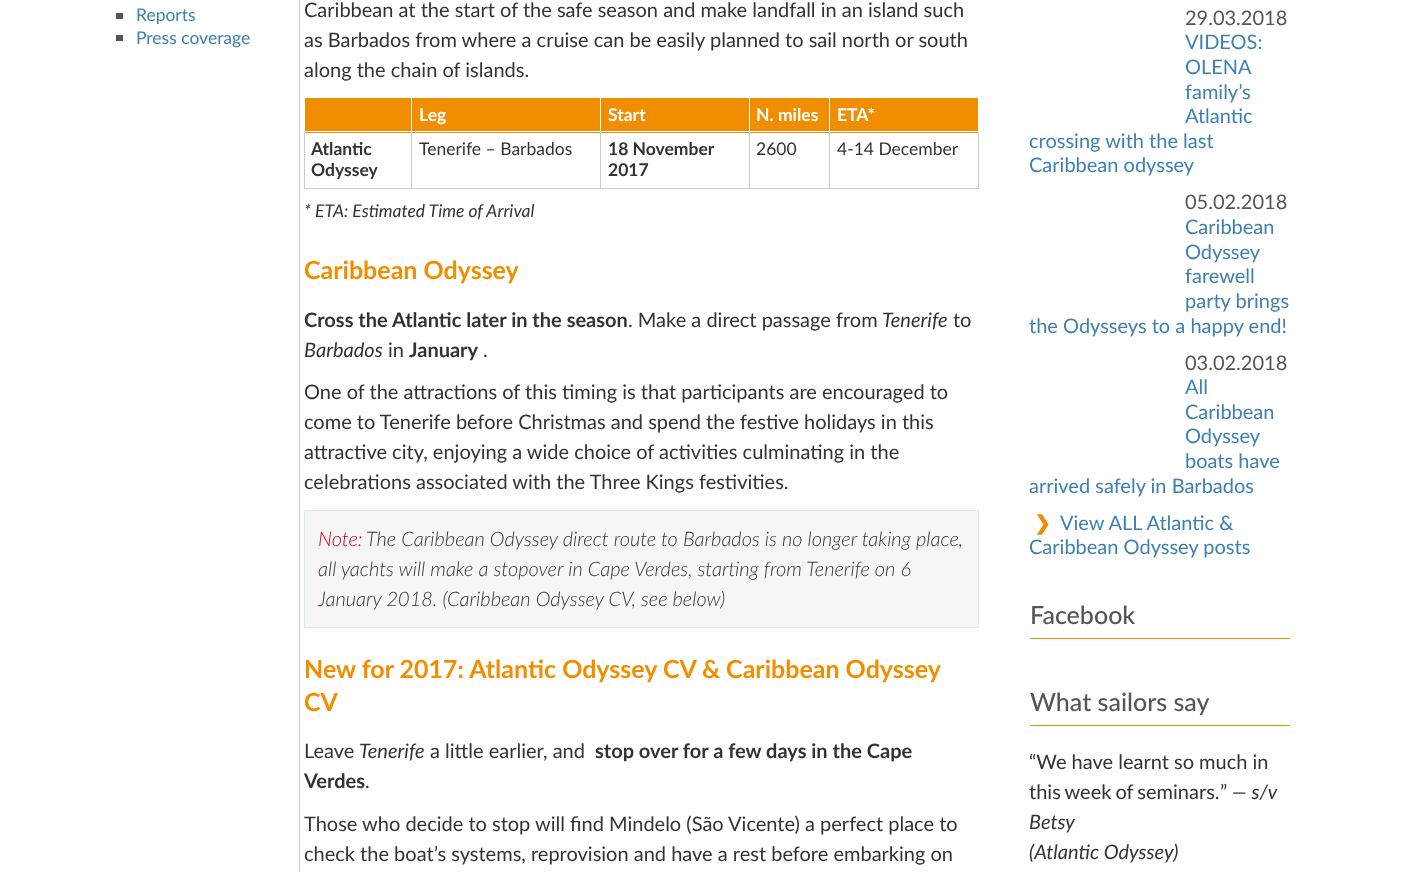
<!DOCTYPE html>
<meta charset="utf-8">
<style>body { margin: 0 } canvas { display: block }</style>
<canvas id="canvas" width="1403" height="872"></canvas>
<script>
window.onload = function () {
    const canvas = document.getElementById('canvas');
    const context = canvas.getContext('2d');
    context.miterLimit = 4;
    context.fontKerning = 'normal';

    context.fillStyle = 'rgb(255, 255, 255)';
    context.fillRect(0, 0, 1403, 872);
    context.fillStyle = 'rgb(204, 204, 204)';
    context.fillRect(299, 0, 1, 872);
    context.fillStyle = 'rgb(85, 85, 85)';
    context.fillRect(116, 13, 7, 6);
    context.fillRect(116, 35, 7, 6);
    context.fillStyle = 'rgb(241, 142, 0)';
    context.fillRect(305, 98, 295, 35);
    context.fillRect(830, 98, 148, 35);
    context.fillStyle = 'rgb(204, 204, 204)';
    context.fillRect(978, 131, 1, 58);
    context.fillStyle = 'rgb(255, 255, 255)';
    context.fillRect(978, 131, 1, 2);
    context.fillStyle = 'rgb(241, 142, 0)';
    context.fillRect(601, 98, 148, 35);
    context.fillRect(750, 98, 79, 35);
    context.fillStyle = 'rgb(204, 204, 204)';
    context.fillRect(829, 188, 150, 1);
    context.fillRect(829, 131, 1, 58);
    context.fillRect(749, 188, 81, 1);
    context.fillRect(749, 131, 1, 58);
    context.fillRect(600, 188, 150, 1);
    context.fillRect(600, 131, 1, 58);
    context.fillRect(411, 188, 190, 1);
    context.fillRect(411, 131, 1, 58);
    context.fillStyle = 'rgb(255, 255, 255)';
    context.fillRect(411, 131, 568, 1);
    context.fillRect(411, 96, 1, 37);
    context.fillStyle = 'rgb(204, 204, 204)';
    context.fillRect(304, 188, 109, 1);
    context.fillRect(304, 131, 1, 58);
    context.fillStyle = 'rgb(255, 255, 255)';
    context.fillRect(304, 131, 109, 1);
    context.fillRect(304, 132, 1, 1);
    context.fillRect(829, 132, 1, 1);
    context.fillRect(600, 132, 1, 1);
    context.fillRect(749, 132, 1, 1);
    context.fillStyle = 'rgb(246, 246, 246)';
    context.beginPath();
    context.rect(304.5, 510.5, 674, 117);
    context.fill();
    context.strokeStyle = 'rgb(223, 232, 237)';
    context.stroke();
    context.fillStyle = 'rgb(241, 142, 0)';
    context.fillRect(1030, 638, 260, 1);
    context.fillRect(1030, 725, 260, 1);
    context.font = '17.5px Lato';
    context.fillStyle = 'rgb(61, 128, 178)';
    context.fillText('Reports', 136, 21);
    context.fillText('Press coverage', 136, 44);
    context.font = '20px Lato';
    context.fillStyle = 'rgb(51, 51, 51)';
    context.fillText('Caribbean at the start of the safe season and make landfall in an island such', 304, 17);
    context.fillText('as Barbados from where a cruise can be easily planned to sail north or south', 304, 47);
    context.fillText('along the chain of islands.', 304, 77);
    context.font = 'bold 17.5px Lato';
    context.fillStyle = 'rgb(255, 255, 255)';
    context.fillText('ETA*', 837, 121);
    context.fillText('Leg', 419, 121);
    context.fillText('Start', 608, 121);
    context.fillText('N. miles', 756, 121);
    context.fillStyle = 'rgb(51, 51, 51)';
    context.fillText('Atlantic', 311, 155);
    context.fillText('Odyssey', 311, 176);
    context.font = '17.5px Lato';
    context.fillText('Tenerife – Barbados', 419, 155);
    context.font = 'bold 17.5px Lato';
    context.fillText('18 November', 608, 155);
    context.fillText('2017', 608, 176);
    context.font = '17.5px Lato';
    context.fillText('2600', 756, 155);
    context.fillText('4-14 December', 837, 155);
    context.font = 'italic 17.5px Lato';
    context.fillText('* ETA: Estimated Time of Arrival', 304, 217);
    context.font = 'bold 25px Lato';
    context.fillStyle = 'rgb(241, 142, 0)';
    context.fillText('Caribbean Odyssey', 304, 279);
    context.font = 'bold 20px Lato';
    context.fillStyle = 'rgb(51, 51, 51)';
    context.fillText('Cross the Atlantic later in the season', 304, 327);
    context.font = '20px Lato';
    context.fillText('. Make a direct passage from', 628, 327);
    context.font = 'italic 20px Lato';
    context.fillText('Tenerife', 882, 327);
    context.font = '20px Lato';
    context.fillText('to', 953, 327);
    context.font = 'italic 20px Lato';
    context.fillText('Barbados', 304, 357);
    context.font = '20px Lato';
    context.fillText('in', 388, 357);
    context.font = 'bold 20px Lato';
    context.fillText('January', 409, 357);
    context.font = '20px Lato';
    context.fillText('.', 483, 357);
    context.fillText('One of the attractions of this timing is that participants are encouraged to', 304, 399);
    context.fillText('come to Tenerife before Christmas and spend the festive holidays in this', 304, 429);
    context.fillText('attractive city, enjoying a wide choice of activities culminating in the', 304, 459);
    context.fillText('celebrations associated with the Three Kings festivities.', 304, 489);
    context.font = 'italic 300 20px Lato';
    context.fillStyle = 'rgb(196, 0, 28)';
    context.fillText('Note:', 318, 546);
    context.fillStyle = 'rgb(51, 51, 51)';
    context.fillText('The Caribbean Odyssey direct route to Barbados is no longer taking place,', 366, 546);
    context.fillText('all yachts will make a stopover in Cape Verdes, starting from Tenerife on 6', 318, 576);
    context.fillText('January 2018. (Caribbean Odyssey CV, see below)', 318, 606);
    context.font = 'bold 25px Lato';
    context.fillStyle = 'rgb(241, 142, 0)';
    context.fillText('New for 2017: Atlantic Odyssey CV & Caribbean Odyssey', 304, 678);
    context.fillText('CV', 304, 711);
    context.font = '20px Lato';
    context.fillStyle = 'rgb(51, 51, 51)';
    context.fillText('Leave', 304, 758);
    context.font = 'italic 20px Lato';
    context.fillText('Tenerife', 359, 758);
    context.font = '20px Lato';
    context.fillText('a little earlier, and', 430, 758);
    context.font = 'bold 20px Lato';
    context.fillText('stop over for a few days in the Cape', 595, 758);
    context.fillText('Verdes', 304, 788);
    context.font = '20px Lato';
    context.fillText('.', 365, 788);
    context.fillText('Those who decide to stop will find Mindelo (São Vicente) a perfect place to', 304, 831);
    context.fillText('check the boat’s systems, reprovision and have a rest before embarking on', 304, 861);
    context.fillStyle = 'rgb(85, 85, 85)';
    context.fillText('29.03.2018', 1185, 25);
    context.fillStyle = 'rgb(61, 128, 178)';
    context.fillText('VIDEOS:', 1185, 49);
    context.fillText('OLENA', 1185, 74);
    context.fillText('family’s', 1185, 99);
    context.fillText('Atlantic', 1185, 123);
    context.fillText('crossing with the last', 1029, 148);
    context.fillText('Caribbean odyssey', 1029, 172);
    context.fillStyle = 'rgb(85, 85, 85)';
    context.fillText('05.02.2018', 1185, 209);
    context.fillStyle = 'rgb(61, 128, 178)';
    context.fillText('Caribbean', 1185, 234);
    context.fillText('Odyssey', 1185, 259);
    context.fillText('farewell', 1185, 283);
    context.fillText('party brings', 1185, 308);
    context.fillText('the Odysseys to a happy end!', 1029, 333);
    context.fillStyle = 'rgb(85, 85, 85)';
    context.fillText('03.02.2018', 1185, 370);
    context.fillStyle = 'rgb(61, 128, 178)';
    context.fillText('All', 1185, 394);
    context.fillText('Caribbean', 1185, 419);
    context.fillText('Odyssey', 1185, 443);
    context.fillText('boats have', 1185, 468);
    context.fillText('arrived safely in Barbados', 1029, 493);
    context.font = 'bold 20px DejaVu Sans';
    context.fillStyle = 'rgb(241, 142, 0)';
    context.fillText('❯', 1034, 530);
    context.font = '20px Lato';
    context.fillStyle = 'rgb(61, 128, 178)';
    context.fillText('View ALL Atlantic &', 1060, 530);
    context.fillText('Caribbean Odyssey posts', 1029, 554);
    context.font = '500 25px Lato';
    context.fillStyle = 'rgb(85, 85, 85)';
    context.fillText('Facebook', 1030, 624);
    context.fillText('What sailors say', 1030, 711);
    context.font = '20px Lato';
    context.fillStyle = 'rgb(51, 51, 51)';
    context.fillText('“We have learnt so much in', 1029, 769);
    context.wordSpacing = '-1px';
    context.fillText('this week of seminars.', 1029, 799);
    context.wordSpacing = '0px';
    context.fillText('”', 1220, 799);
    context.font = 'italic 20px Lato';
    context.fillText('— s/v', 1232, 799);
    context.fillText('Betsy', 1029, 829);
    context.fillText('(Atlantic Odyssey)', 1029, 859);
};
</script>
